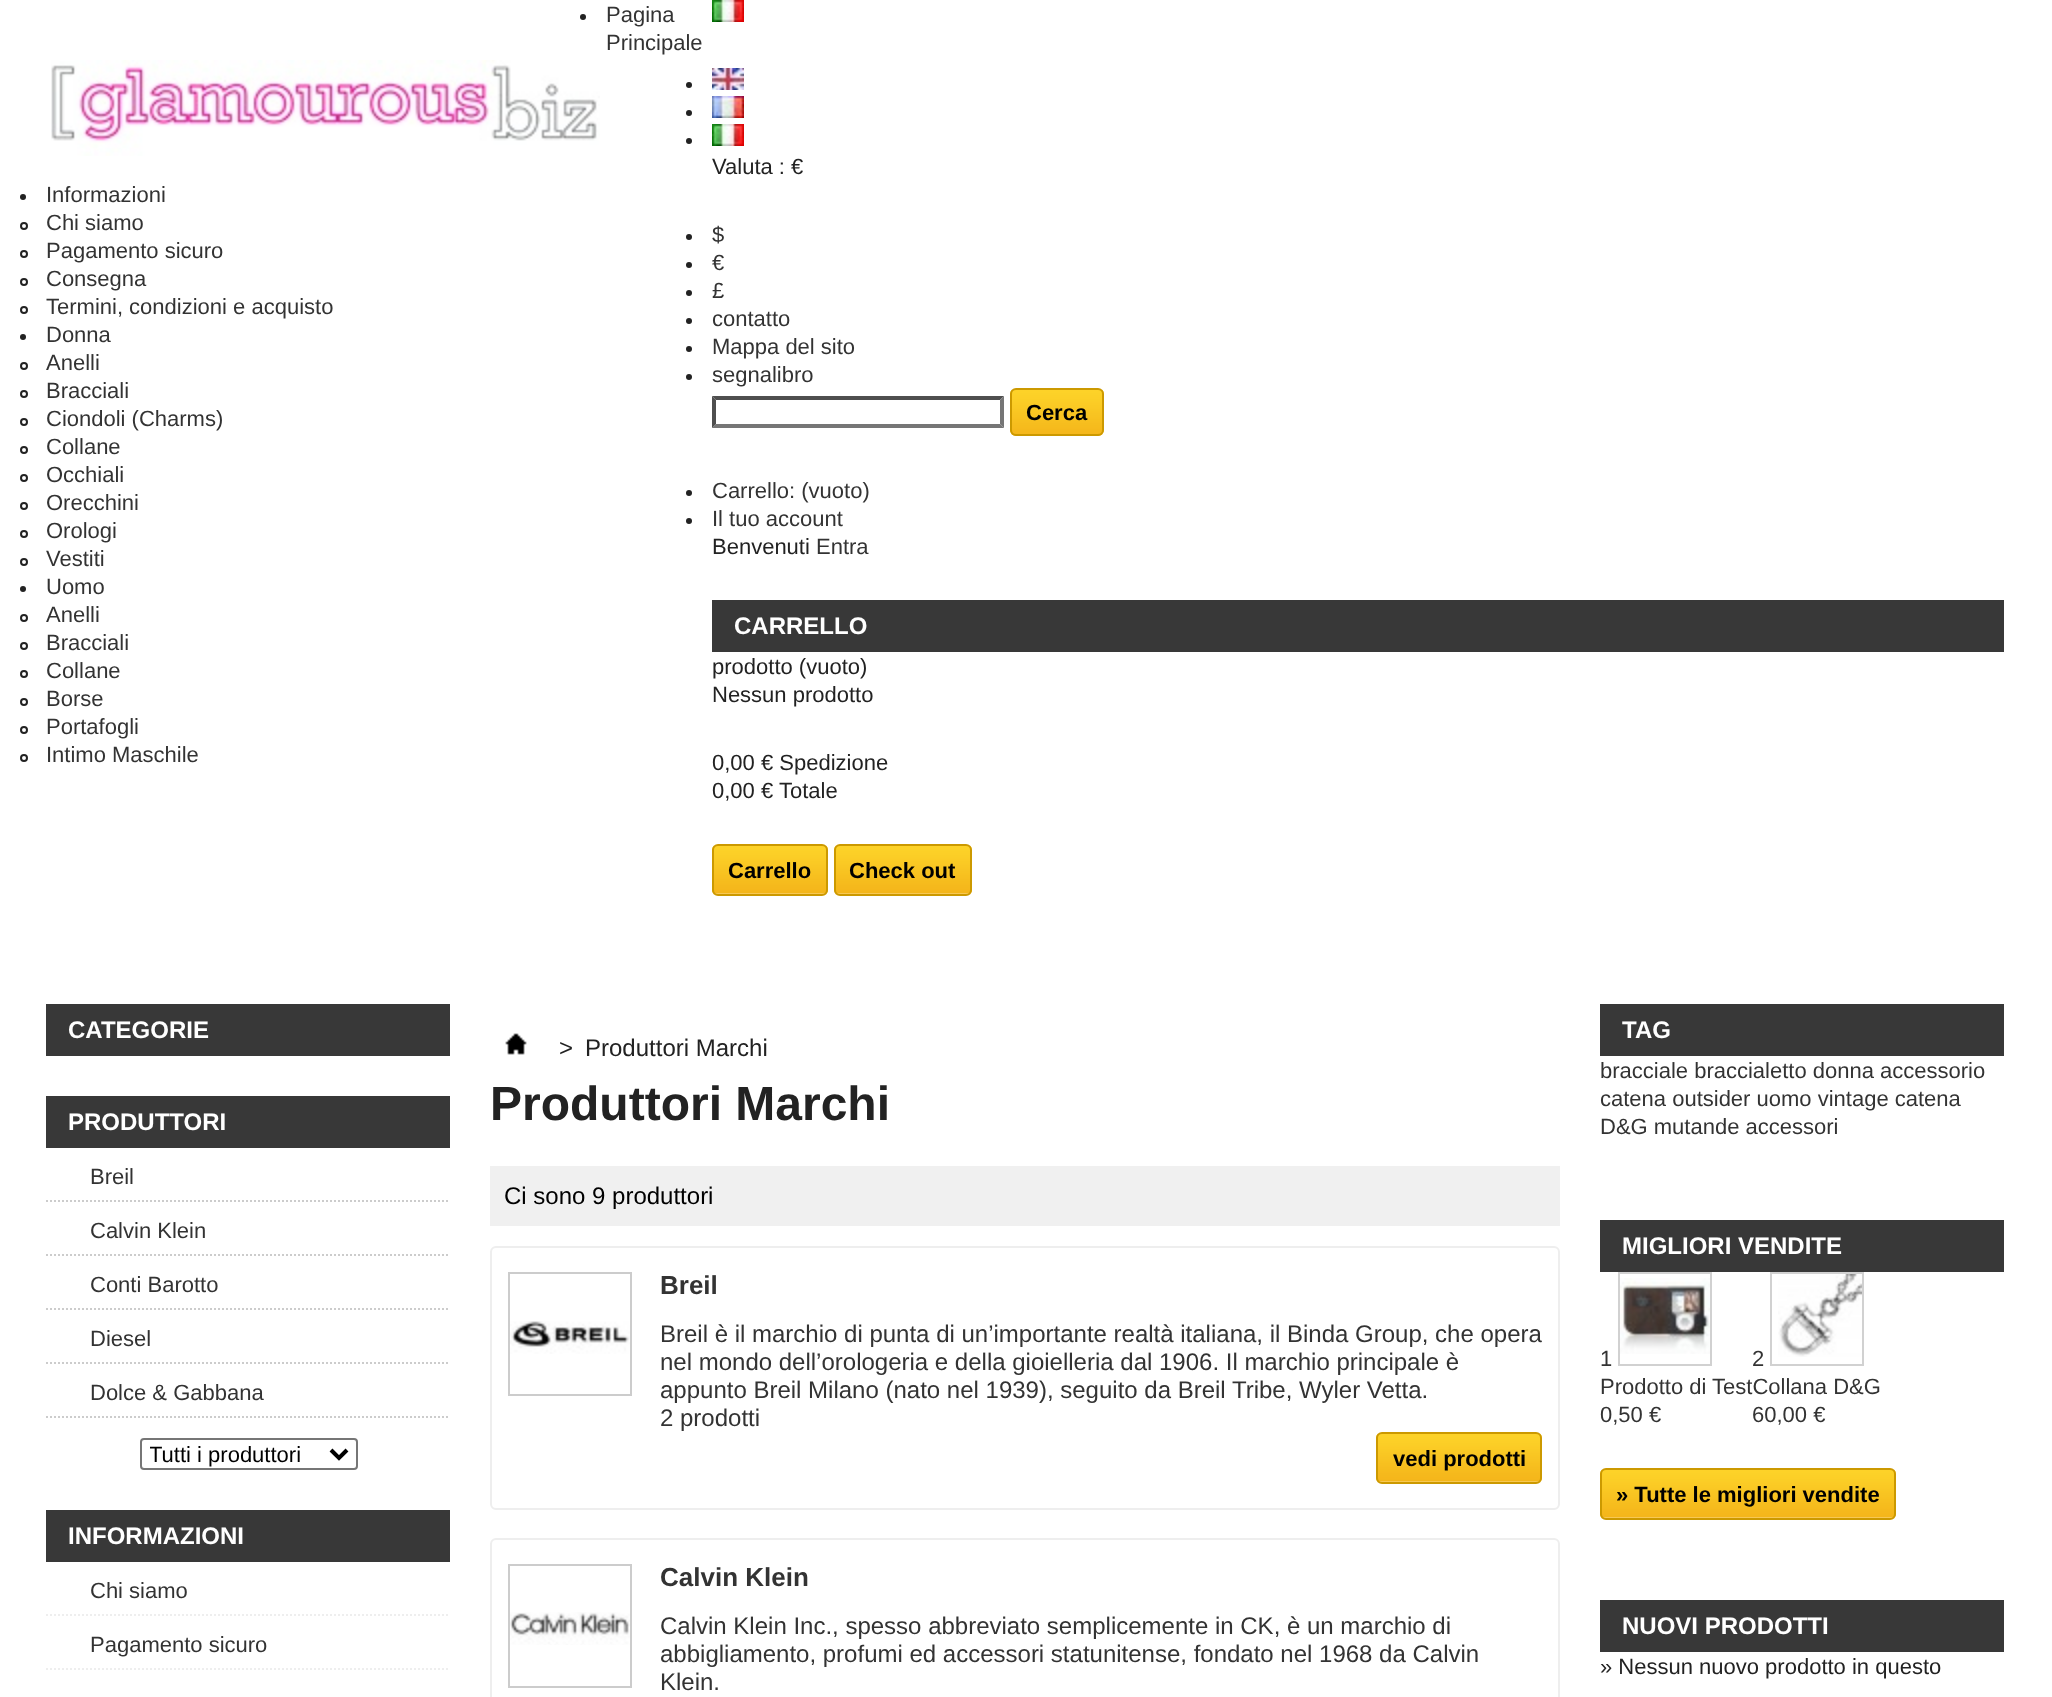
<!DOCTYPE html>
<meta charset="utf-8">
<style>body { margin: 0 } canvas { display: block }</style>
<canvas id="canvas" width="2052" height="1697"></canvas>
<img id="img1" src="images/1.png" hidden>
<img id="img2" src="images/2.png" hidden>
<img id="img3" src="images/3.png" hidden>
<img id="img4" src="images/4.png" hidden>
<img id="img5" src="images/5.png" hidden>
<img id="img6" src="images/6.png" hidden>
<img id="img7" src="images/7.png" hidden>
<img id="img8" src="images/8.png" hidden>
<img id="img9" src="images/9.png" hidden>
<img id="img10" src="images/10.png" hidden>
<img id="img11" src="images/11.png" hidden>
<img id="img12" src="images/12.png" hidden>
<img id="img13" src="images/13.png" hidden>
<img id="img14" src="images/14.png" hidden>
<script>
window.onload = function () {
    const canvas = document.getElementById('canvas');
    const context = canvas.getContext('2d');
    context.miterLimit = 4;
    context.fontKerning = 'normal';

    context.fillStyle = 'rgb(255, 255, 255)';
    context.fillRect(0, 0, 2052, 1697);
    context.fillStyle = 'rgb(34, 34, 34)';
    context.beginPath();
    context.arc(583, 17, 3, 0, 2 * Math.PI);
    context.fill();
    context.beginPath();
    context.arc(23, 197, 3, 0, 2 * Math.PI);
    context.fill();
    context.beginPath();
    context.arc(24, 226, 3, 0, 2 * Math.PI);
    context.strokeStyle = 'rgb(34, 34, 34)';
    context.lineWidth = 2;
    context.stroke();
    context.beginPath();
    context.arc(24, 254, 3, 0, 2 * Math.PI);
    context.stroke();
    context.beginPath();
    context.arc(24, 282, 3, 0, 2 * Math.PI);
    context.stroke();
    context.beginPath();
    context.arc(24, 310, 3, 0, 2 * Math.PI);
    context.stroke();
    context.beginPath();
    context.arc(23, 337, 3, 0, 2 * Math.PI);
    context.fill();
    context.beginPath();
    context.arc(24, 366, 3, 0, 2 * Math.PI);
    context.stroke();
    context.beginPath();
    context.arc(24, 394, 3, 0, 2 * Math.PI);
    context.stroke();
    context.beginPath();
    context.arc(24, 422, 3, 0, 2 * Math.PI);
    context.stroke();
    context.beginPath();
    context.arc(24, 450, 3, 0, 2 * Math.PI);
    context.stroke();
    context.beginPath();
    context.arc(24, 478, 3, 0, 2 * Math.PI);
    context.stroke();
    context.beginPath();
    context.arc(24, 506, 3, 0, 2 * Math.PI);
    context.stroke();
    context.beginPath();
    context.arc(24, 534, 3, 0, 2 * Math.PI);
    context.stroke();
    context.beginPath();
    context.arc(24, 562, 3, 0, 2 * Math.PI);
    context.stroke();
    context.beginPath();
    context.arc(23, 589, 3, 0, 2 * Math.PI);
    context.fill();
    context.beginPath();
    context.arc(24, 618, 3, 0, 2 * Math.PI);
    context.stroke();
    context.beginPath();
    context.arc(24, 646, 3, 0, 2 * Math.PI);
    context.stroke();
    context.beginPath();
    context.arc(24, 674, 3, 0, 2 * Math.PI);
    context.stroke();
    context.beginPath();
    context.arc(24, 702, 3, 0, 2 * Math.PI);
    context.stroke();
    context.beginPath();
    context.arc(24, 730, 3, 0, 2 * Math.PI);
    context.stroke();
    context.beginPath();
    context.arc(24, 758, 3, 0, 2 * Math.PI);
    context.stroke();
    context.drawImage(document.getElementById('img1'), 51, 60, 549, 96);
    context.drawImage(document.getElementById('img2'), 712, 0, 32, 22);
    context.beginPath();
    context.arc(689, 85, 3, 0, 2 * Math.PI);
    context.fill();
    context.drawImage(document.getElementById('img3'), 712, 68, 32, 22);
    context.beginPath();
    context.arc(689, 113, 3, 0, 2 * Math.PI);
    context.fill();
    context.drawImage(document.getElementById('img4'), 712, 96, 32, 22);
    context.beginPath();
    context.arc(689, 141, 3, 0, 2 * Math.PI);
    context.fill();
    context.drawImage(document.getElementById('img2'), 712, 124, 32, 22);
    context.beginPath();
    context.arc(689, 237, 3, 0, 2 * Math.PI);
    context.fill();
    context.beginPath();
    context.arc(689, 265, 3, 0, 2 * Math.PI);
    context.fill();
    context.beginPath();
    context.arc(689, 293, 3, 0, 2 * Math.PI);
    context.fill();
    context.beginPath();
    context.arc(689, 321, 3, 0, 2 * Math.PI);
    context.fill();
    context.beginPath();
    context.arc(689, 349, 3, 0, 2 * Math.PI);
    context.fill();
    context.beginPath();
    context.arc(689, 377, 3, 0, 2 * Math.PI);
    context.fill();
    context.fillStyle = 'rgb(79, 79, 79)';
    context.beginPath();
    context.moveTo(712, 396);
    context.lineTo(1004, 396);
    context.lineTo(1000, 400);
    context.lineTo(716, 400);
    context.closePath();
    context.fill();
    context.fillStyle = 'rgb(118, 118, 118)';
    context.beginPath();
    context.moveTo(1004, 396);
    context.lineTo(1004, 428);
    context.lineTo(1000, 424);
    context.lineTo(1000, 400);
    context.closePath();
    context.fill();
    context.beginPath();
    context.moveTo(1004, 428);
    context.lineTo(712, 428);
    context.lineTo(716, 424);
    context.lineTo(1000, 424);
    context.closePath();
    context.fill();
    context.fillStyle = 'rgb(79, 79, 79)';
    context.beginPath();
    context.moveTo(712, 428);
    context.lineTo(712, 396);
    context.lineTo(716, 400);
    context.lineTo(716, 424);
    context.closePath();
    context.fill();
    context.drawImage(document.getElementById('img5'), 1010, 390, 94, 46);
    context.beginPath();
    context.roundRect(1011, 389, 92, 46, 5);
    context.strokeStyle = 'rgb(204, 153, 0)';
    context.stroke();
    context.fillStyle = 'rgb(34, 34, 34)';
    context.beginPath();
    context.arc(689, 493, 3, 0, 2 * Math.PI);
    context.fill();
    context.beginPath();
    context.arc(689, 521, 3, 0, 2 * Math.PI);
    context.fill();
    context.fillStyle = 'rgb(56, 56, 56)';
    context.fillRect(712, 600, 1292, 52);
    context.drawImage(document.getElementById('img6'), 712, 846, 116, 49);
    context.beginPath();
    context.roundRect(713, 845, 114, 50, 5);
    context.stroke();
    context.drawImage(document.getElementById('img7'), 834, 846, 138, 49);
    context.beginPath();
    context.roundRect(835, 845, 136, 50, 5);
    context.stroke();
    context.fillRect(46, 1004, 404, 52);
    context.fillRect(46, 1096, 404, 52);
    context.beginPath();
    context.moveTo(46, 1201);
    context.lineTo(450, 1201);
    context.strokeStyle = 'rgb(204, 204, 204)';
    context.setLineDash([2, 2]);
    context.stroke();
    context.beginPath();
    context.moveTo(46, 1255);
    context.lineTo(450, 1255);
    context.stroke();
    context.beginPath();
    context.moveTo(46, 1309);
    context.lineTo(450, 1309);
    context.stroke();
    context.beginPath();
    context.moveTo(46, 1363);
    context.lineTo(450, 1363);
    context.stroke();
    context.beginPath();
    context.moveTo(46, 1417);
    context.lineTo(450, 1417);
    context.stroke();
    context.beginPath();
    context.roundRect(141, 1439, 216, 30, 3);
    context.strokeStyle = 'rgb(118, 118, 118)';
    context.setLineDash([]);
    context.stroke();
    context.beginPath();
    context.moveTo(331, 1450);
    context.lineTo(339, 1458);
    context.lineTo(347, 1450);
    context.strokeStyle = 'rgb(0, 0, 0)';
    context.lineWidth = 4;
    context.stroke();
    context.fillRect(46, 1510, 404, 52);
    context.beginPath();
    context.moveTo(46, 1615);
    context.lineTo(450, 1615);
    context.strokeStyle = 'rgb(238, 238, 238)';
    context.lineWidth = 2;
    context.setLineDash([2, 2]);
    context.stroke();
    context.beginPath();
    context.moveTo(46, 1669);
    context.lineTo(450, 1669);
    context.stroke();
    context.drawImage(document.getElementById('img8'), 505, 1033, 22, 22);
    context.fillStyle = 'rgb(240, 240, 240)';
    context.fillRect(490, 1166, 1070, 60);
    context.beginPath();
    context.roundRect(491, 1247, 1068, 262, 5);
    context.setLineDash([]);
    context.stroke();
    context.strokeStyle = 'rgb(204, 204, 204)';
    context.strokeRect(509, 1273, 122, 122);
    context.drawImage(document.getElementById('img9'), 510, 1321, 120, 33);
    context.drawImage(document.getElementById('img10'), 1376, 1434, 166, 49);
    context.beginPath();
    context.roundRect(1377, 1433, 164, 50, 5);
    context.strokeStyle = 'rgb(204, 153, 0)';
    context.stroke();
    context.beginPath();
    context.roundRect(491, 1539, 1068, 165, 5);
    context.strokeStyle = 'rgb(238, 238, 238)';
    context.stroke();
    context.strokeStyle = 'rgb(204, 204, 204)';
    context.strokeRect(509, 1565, 122, 122);
    context.drawImage(document.getElementById('img11'), 510, 1612, 120, 33);
    context.fillStyle = 'rgb(56, 56, 56)';
    context.fillRect(1600, 1004, 404, 52);
    context.fillRect(1600, 1220, 404, 52);
    context.strokeStyle = 'rgb(209, 209, 209)';
    context.strokeRect(1619, 1273, 92, 92);
    context.drawImage(document.getElementById('img12'), 1620, 1278, 90, 76);
    context.strokeRect(1771, 1273, 92, 92);
    context.drawImage(document.getElementById('img13'), 1778, 1274, 84, 83);
    context.drawImage(document.getElementById('img14'), 1600, 1470, 296, 49);
    context.beginPath();
    context.roundRect(1601, 1469, 294, 50, 5);
    context.strokeStyle = 'rgb(204, 153, 0)';
    context.stroke();
    context.fillRect(1600, 1600, 404, 52);
    context.font = '22px Liberation Sans';
    context.fillStyle = 'rgb(51, 51, 51)';
    context.fillText('Pagina', 606, 22);
    context.fillText('Principale', 606, 50);
    context.fillText('Informazioni', 46, 202);
    context.fillText('Chi siamo', 46, 230);
    context.fillText('Pagamento sicuro', 46, 258);
    context.fillText('Consegna', 46, 286);
    context.fillText('Termini, condizioni e acquisto', 46, 314);
    context.fillText('Donna', 46, 342);
    context.fillText('Anelli', 46, 370);
    context.fillText('Bracciali', 46, 398);
    context.fillText('Ciondoli (Charms)', 46, 426);
    context.fillText('Collane', 46, 454);
    context.fillText('Occhiali', 46, 482);
    context.fillText('Orecchini', 46, 510);
    context.fillText('Orologi', 46, 538);
    context.fillText('Vestiti', 46, 566);
    context.fillText('Uomo', 46, 594);
    context.fillText('Anelli', 46, 622);
    context.fillText('Bracciali', 46, 650);
    context.fillText('Collane', 46, 678);
    context.fillText('Borse', 46, 706);
    context.fillText('Portafogli', 46, 734);
    context.fillText('Intimo Maschile', 46, 762);
    context.fillStyle = 'rgb(34, 34, 34)';
    context.fillText('Valuta : €', 712, 174);
    context.fillStyle = 'rgb(51, 51, 51)';
    context.fillText('$', 712, 242);
    context.fillText('€', 712, 270);
    context.fillText('£', 712, 298);
    context.fillText('contatto', 712, 326);
    context.fillText('Mappa del sito', 712, 354);
    context.fillText('segnalibro', 712, 382);
    context.font = 'bold 22px Liberation Sans';
    context.fillStyle = 'rgb(0, 0, 0)';
    context.fillText('Cerca', 1026, 420);
    context.font = '22px Liberation Sans';
    context.fillStyle = 'rgb(51, 51, 51)';
    context.fillText('Carrello: (vuoto)', 712, 498);
    context.fillText('Il tuo account', 712, 526);
    context.fillStyle = 'rgb(34, 34, 34)';
    context.fillText('Benvenuti', 712, 554);
    context.fillStyle = 'rgb(51, 51, 51)';
    context.fillText('Entra', 816, 554);
    context.font = 'bold 24px Liberation Sans';
    context.fillStyle = 'rgb(255, 255, 255)';
    context.fillText('CARRELLO', 734, 634);
    context.font = '22px Liberation Sans';
    context.fillStyle = 'rgb(34, 34, 34)';
    context.fillText('prodotto (vuoto)', 712, 674);
    context.fillText('Nessun prodotto', 712, 702);
    context.fillText('0,00 € Spedizione', 712, 770);
    context.fillText('0,00 €', 712, 798);
    context.fillText('Totale', 779, 798);
    context.font = 'bold 22px Liberation Sans';
    context.fillStyle = 'rgb(0, 0, 0)';
    context.fillText('Carrello', 728, 878);
    context.fillText('Check out', 849, 878);
    context.font = 'bold 24px Liberation Sans';
    context.fillStyle = 'rgb(255, 255, 255)';
    context.fillText('CATEGORIE', 68, 1038);
    context.fillText('PRODUTTORI', 68, 1130);
    context.font = '22px Liberation Sans';
    context.fillStyle = 'rgb(51, 51, 51)';
    context.fillText('Breil', 90, 1184);
    context.fillText('Calvin Klein', 90, 1238);
    context.fillText('Conti Barotto', 90, 1292);
    context.fillText('Diesel', 90, 1346);
    context.fillText('Dolce & Gabbana', 90, 1400);
    context.save();
    context.beginPath();
    context.rect(150, 1440, 174, 28);
    context.clip();
    context.fillStyle = 'rgb(0, 0, 0)';
    context.fillText('Tutti i produttori', 149, 1462);
    context.restore();
    context.font = 'bold 24px Liberation Sans';
    context.fillStyle = 'rgb(255, 255, 255)';
    context.fillText('INFORMAZIONI', 68, 1544);
    context.font = '22px Liberation Sans';
    context.fillStyle = 'rgb(51, 51, 51)';
    context.fillText('Chi siamo', 90, 1598);
    context.fillText('Pagamento sicuro', 90, 1652);
    context.font = '24px Liberation Sans';
    context.fillStyle = 'rgb(34, 34, 34)';
    context.fillText('>', 559, 1056);
    context.fillText('Produttori Marchi', 585, 1056);
    context.font = 'bold 48px Liberation Sans';
    context.fillText('Produttori Marchi', 490, 1120);
    context.font = '24px Liberation Sans';
    context.fillStyle = 'rgb(0, 0, 0)';
    context.fillText('Ci sono 9 produttori', 504, 1204);
    context.font = 'bold 26px Liberation Sans';
    context.fillStyle = 'rgb(51, 51, 51)';
    context.fillText('Breil', 660, 1294);
    context.font = '24px Liberation Sans';
    context.fillText('Breil è il marchio di punta di un’importante realtà italiana, il Binda Group, che opera', 660, 1342);
    context.fillText('nel mondo dell’orologeria e della gioielleria dal 1906. Il marchio principale è', 660, 1370);
    context.fillText('appunto Breil Milano (nato nel 1939), seguito da Breil Tribe, Wyler Vetta.', 660, 1398);
    context.fillText('2 prodotti', 660, 1426);
    context.font = 'bold 22px Liberation Sans';
    context.fillStyle = 'rgb(0, 0, 0)';
    context.fillText('vedi prodotti', 1393, 1466);
    context.font = 'bold 26px Liberation Sans';
    context.fillStyle = 'rgb(51, 51, 51)';
    context.fillText('Calvin Klein', 660, 1586);
    context.font = '24px Liberation Sans';
    context.fillText('Calvin Klein Inc., spesso abbreviato semplicemente in CK, è un marchio di', 660, 1634);
    context.fillText('abbigliamento, profumi ed accessori statunitense, fondato nel 1968 da Calvin', 660, 1662);
    context.fillText('Klein.', 660, 1690);
    context.font = 'bold 24px Liberation Sans';
    context.fillStyle = 'rgb(255, 255, 255)';
    context.fillText('TAG', 1622, 1038);
    context.font = '22px Liberation Sans';
    context.fillStyle = 'rgb(51, 51, 51)';
    context.fillText('bracciale braccialetto donna accessorio', 1600, 1078);
    context.fillText('catena outsider uomo vintage catena', 1600, 1106);
    context.fillText('D&G mutande accessori', 1600, 1134);
    context.font = 'bold 24px Liberation Sans';
    context.fillStyle = 'rgb(255, 255, 255)';
    context.fillText('MIGLIORI VENDITE', 1622, 1254);
    context.font = '22px Liberation Sans';
    context.fillStyle = 'rgb(51, 51, 51)';
    context.fillText('1', 1600, 1366);
    context.fillText('Prodotto di TestCollana D&G', 1600, 1394);
    context.fillText('0,50 €', 1600, 1422);
    context.fillText('2', 1752, 1366);
    context.fillText('60,00 €', 1752, 1422);
    context.font = 'bold 22px Liberation Sans';
    context.fillStyle = 'rgb(0, 0, 0)';
    context.fillText('» Tutte le migliori vendite', 1616, 1502);
    context.font = 'bold 24px Liberation Sans';
    context.fillStyle = 'rgb(255, 255, 255)';
    context.fillText('NUOVI PRODOTTI', 1622, 1634);
    context.font = '22px Liberation Sans';
    context.fillStyle = 'rgb(34, 34, 34)';
    context.fillText('» Nessun nuovo prodotto in questo', 1600, 1674);
};
</script>
